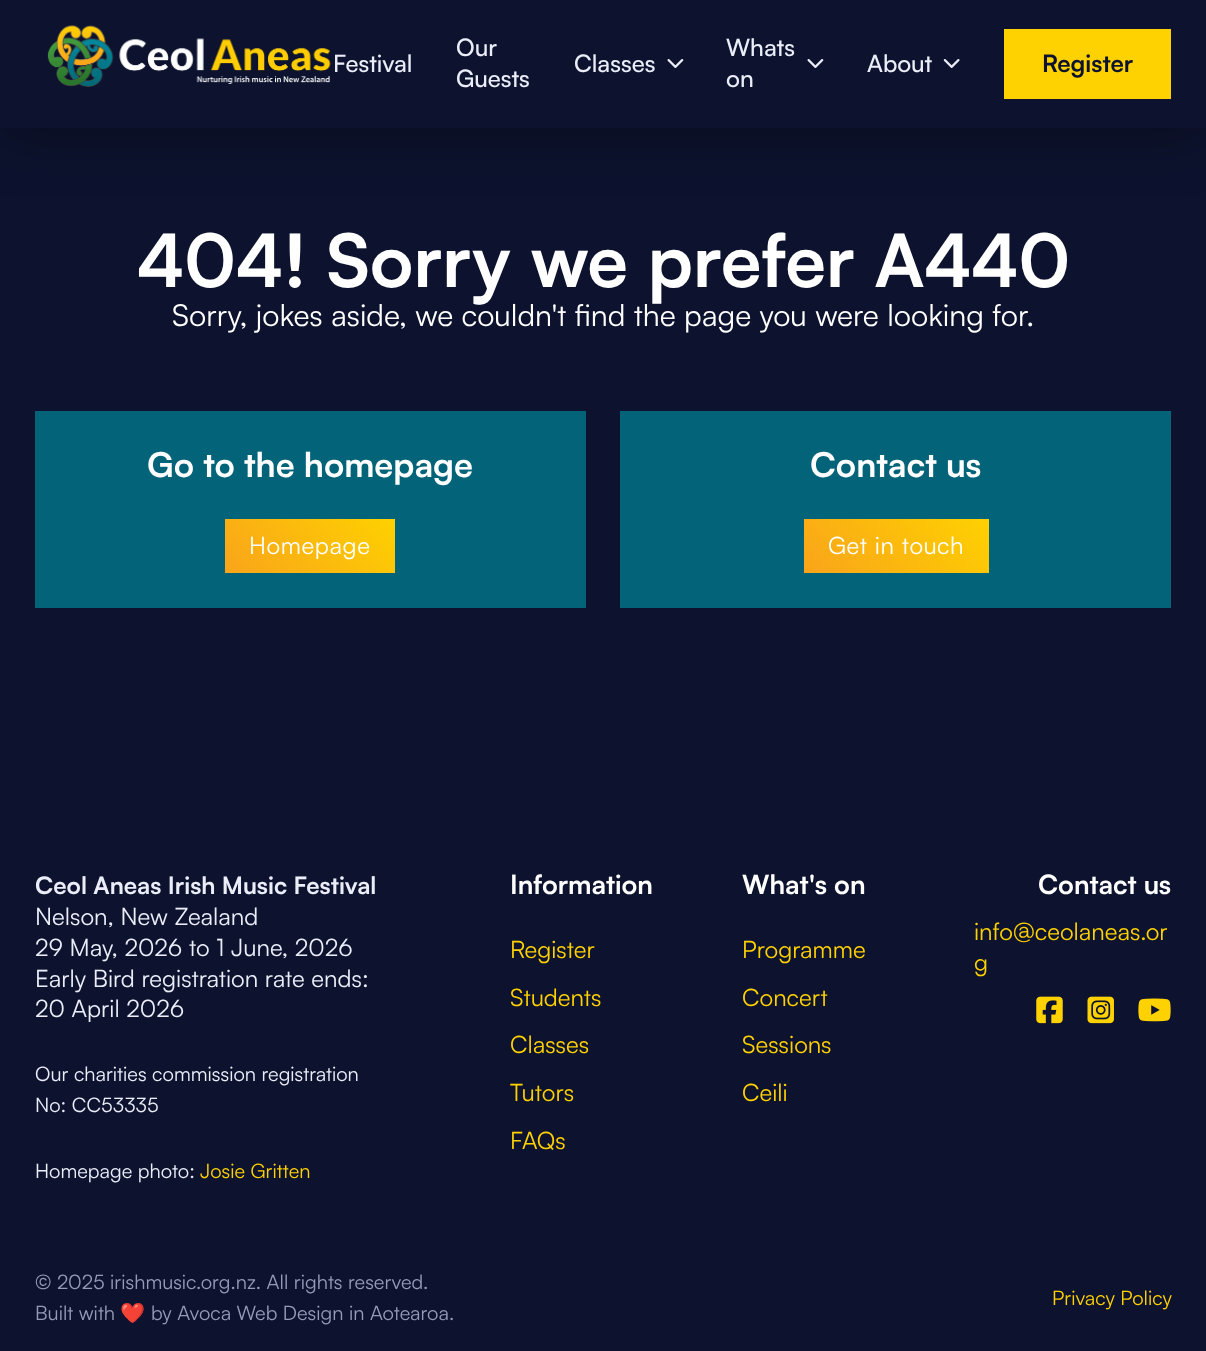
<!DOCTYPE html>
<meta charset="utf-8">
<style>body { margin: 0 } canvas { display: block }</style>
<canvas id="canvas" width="1206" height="1351"></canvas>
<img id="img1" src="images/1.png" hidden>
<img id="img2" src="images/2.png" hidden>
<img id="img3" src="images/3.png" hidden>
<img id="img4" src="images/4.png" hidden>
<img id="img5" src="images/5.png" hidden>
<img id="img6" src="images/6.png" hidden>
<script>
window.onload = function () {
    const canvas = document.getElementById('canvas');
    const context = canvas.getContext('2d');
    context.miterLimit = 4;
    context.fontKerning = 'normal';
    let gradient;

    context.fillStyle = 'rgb(13, 19, 46)';
    context.fillRect(0, 0, 1206, 1351);
    context.fillStyle = 'rgba(0, 0, 0, 0.4)';
    context.filter = 'blur(31px)';
    context.beginPath();
    context.rect(0, 0, 1206, 128);
    context.fill();
    context.filter = 'none';
    context.fillStyle = 'rgb(13, 19, 46)';
    context.fillRect(0, 0, 1206, 128);
    context.drawImage(document.getElementById('img1'), 47, 25, 284, 62);
    context.drawImage(document.getElementById('img2'), 667, 59, 17, 9);
    context.drawImage(document.getElementById('img2'), 807, 59, 17, 9);
    context.drawImage(document.getElementById('img3'), 943, 59, 17, 9);
    context.fillStyle = 'rgb(254, 209, 0)';
    context.fillRect(1004, 29, 167, 70);
    context.fillStyle = 'rgb(3, 99, 120)';
    context.fillRect(35, 411, 551, 197);
    gradient = context.createLinearGradient(254, 602, 366, 490);
    gradient.addColorStop(0, 'rgb(249, 164, 26)');
    gradient.addColorStop(1, 'rgb(254, 209, 0)');
    context.fillStyle = gradient;
    context.fillRect(225, 519, 170, 54);
    context.fillStyle = 'rgb(3, 99, 120)';
    context.fillRect(620, 411, 551, 197);
    gradient = context.createLinearGradient(837, 605, 956, 486);
    gradient.addColorStop(0, 'rgb(249, 164, 26)');
    gradient.addColorStop(1, 'rgb(254, 209, 0)');
    context.fillStyle = gradient;
    context.fillRect(804, 519, 185, 54);
    context.drawImage(document.getElementById('img4'), 1036, 996, 27, 28);
    context.drawImage(document.getElementById('img5'), 1087, 996, 27, 28);
    context.drawImage(document.getElementById('img6'), 1138, 998, 33, 24);
    context.font = '500 24px Satoshi';
    context.fillStyle = 'rgb(235, 238, 249)';
    context.fillText('Festival', 333, 72);
    context.fillText('Our', 456, 56);
    context.fillText('Guests', 456, 87);
    context.fillText('Classes', 574, 72);
    context.fillText('Whats', 726, 56);
    context.fillText('on', 726, 87);
    context.fillText('About', 867, 72);
    context.font = 'bold 24px Satoshi';
    context.fillStyle = 'rgb(13, 19, 46)';
    context.fillText('Register', 1042, 72);
    context.font = 'bold 73.25px Satoshi';
    context.fillStyle = 'rgb(255, 255, 255)';
    context.fillText('404! Sorry we prefer A440', 137, 287);
    context.font = '30.25px Satoshi';
    context.fillText('Sorry, jokes aside, we couldn\'t find the page you were looking for.', 172, 326);
    context.font = 'bold 34.1px Satoshi';
    context.fillText('Go to the homepage', 147, 477);
    context.letterSpacing = '0.6px';
    context.font = '24px Satoshi';
    context.fillText('Homepage', 249, 554);
    context.letterSpacing = '0px';
    context.font = 'bold 34.1px Satoshi';
    context.fillText('Contact us', 810, 477);
    context.letterSpacing = '0.6px';
    context.font = '24px Satoshi';
    context.fillText('Get in touch', 828, 554);
    context.letterSpacing = '0px';
    context.font = 'bold 24px Satoshi';
    context.fillStyle = 'rgb(235, 238, 249)';
    context.fillText('Ceol Aneas Irish Music Festival', 35, 894);
    context.font = '24px Satoshi';
    context.fillText('Nelson, New Zealand', 35, 925);
    context.fillText('29 May, 2026 to 1 June, 2026', 35, 956);
    context.fillText('Early Bird registration rate ends:', 35, 987);
    context.fillText('20 April 2026', 35, 1017);
    context.font = '20px Satoshi';
    context.fillText('Our charities commission registration', 35, 1081);
    context.fillText('No: CC53335', 35, 1112);
    context.fillText('Homepage photo:', 35, 1178);
    context.fillStyle = 'rgb(254, 209, 0)';
    context.fillText('Josie Gritten', 200, 1178);
    context.font = 'bold 26.5px Satoshi';
    context.fillStyle = 'rgb(255, 255, 255)';
    context.fillText('Information', 510, 894);
    context.font = '24px Satoshi';
    context.fillStyle = 'rgb(254, 209, 0)';
    context.fillText('Register', 510, 958);
    context.fillText('Students', 510, 1006);
    context.fillText('Classes', 510, 1053);
    context.fillText('Tutors', 510, 1101);
    context.fillText('FAQs', 510, 1149);
    context.font = 'bold 26.5px Satoshi';
    context.fillStyle = 'rgb(255, 255, 255)';
    context.fillText('What\'s on', 742, 894);
    context.font = '24px Satoshi';
    context.fillStyle = 'rgb(254, 209, 0)';
    context.fillText('Programme', 742, 958);
    context.fillText('Concert', 742, 1006);
    context.fillText('Sessions', 742, 1053);
    context.fillText('Ceili', 742, 1101);
    context.font = 'bold 26.5px Satoshi';
    context.fillStyle = 'rgb(255, 255, 255)';
    context.fillText('Contact us', 1038, 894);
    context.font = '24px Satoshi';
    context.fillStyle = 'rgb(254, 209, 0)';
    context.fillText('info@ceolaneas.or', 974, 940);
    context.fillText('g', 974, 971);
    context.font = '20px Satoshi';
    context.fillStyle = 'rgb(148, 154, 184)';
    context.fillText('© 2025 irishmusic.org.nz. All rights reserved.', 35, 1289);
    context.fillText('Built with', 35, 1320);
    context.font = '20px Noto Color Emoji';
    context.fillText('❤️', 120, 1320);
    context.font = '20px Satoshi';
    context.fillText('by Avoca Web Design in Aotearoa.', 151, 1320);
    context.fillStyle = 'rgb(254, 209, 0)';
    context.fillText('Privacy Policy', 1052, 1305);
};
</script>
